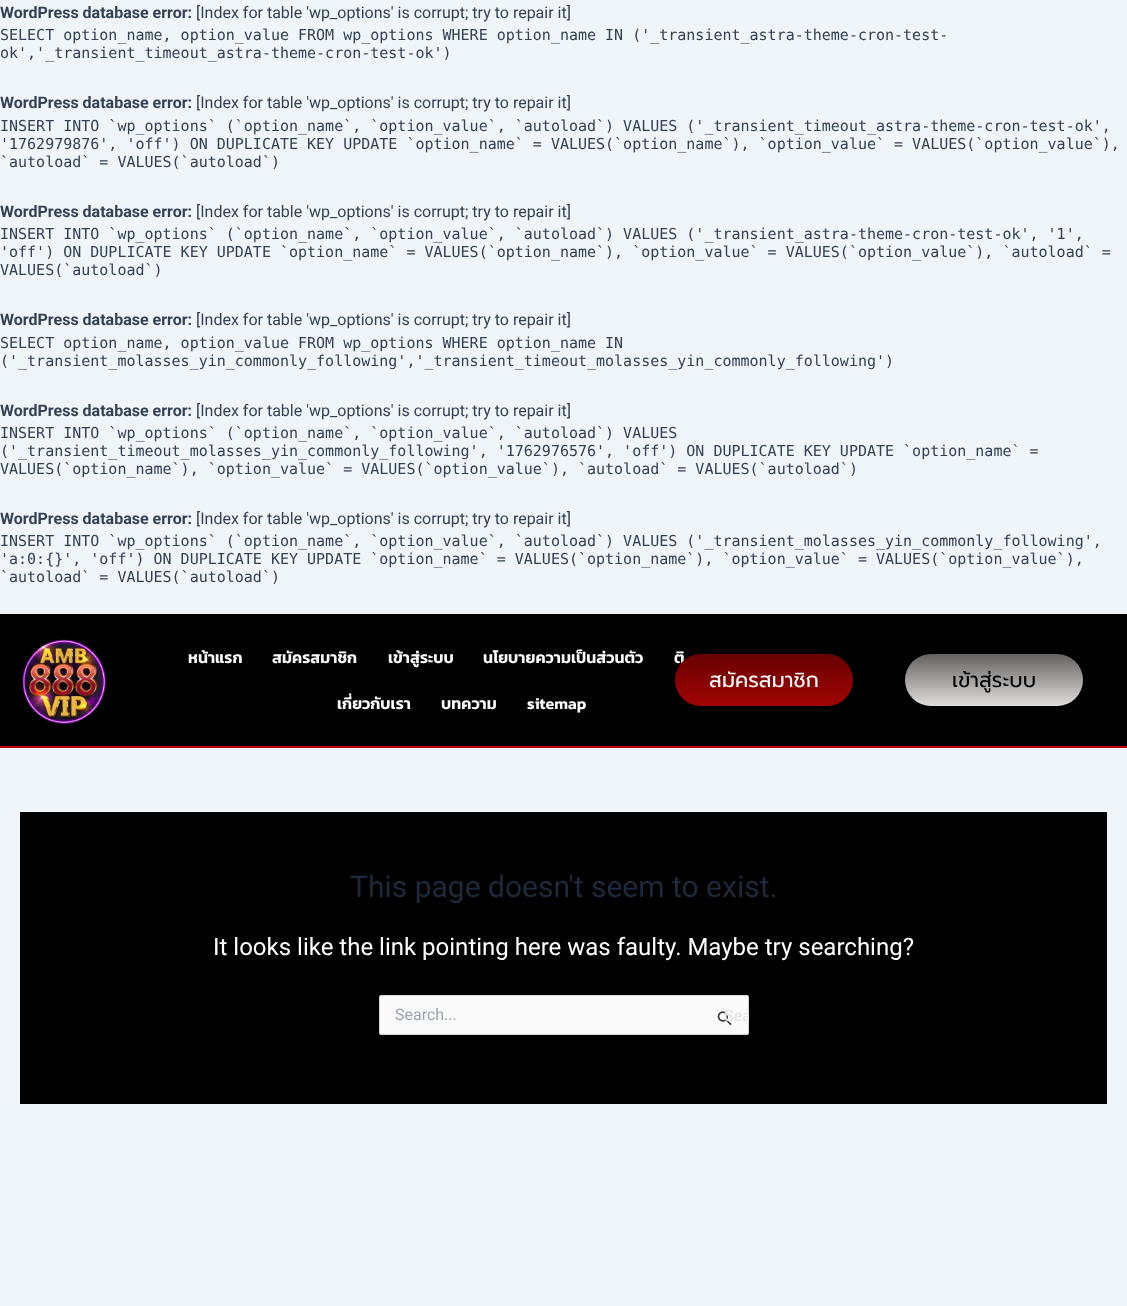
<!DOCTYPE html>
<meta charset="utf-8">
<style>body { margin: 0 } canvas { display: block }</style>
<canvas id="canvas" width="1127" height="1306"></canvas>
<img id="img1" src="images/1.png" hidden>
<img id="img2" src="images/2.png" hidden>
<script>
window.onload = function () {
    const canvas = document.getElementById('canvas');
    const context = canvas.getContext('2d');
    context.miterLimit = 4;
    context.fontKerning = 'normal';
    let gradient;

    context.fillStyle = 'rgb(240, 245, 250)';
    context.fillRect(0, 0, 1127, 1306);
    context.fillStyle = 'rgb(0, 0, 0)';
    context.fillRect(0, 614, 1127, 132);
    context.fillStyle = 'rgb(196, 0, 0)';
    context.fillRect(0, 746, 1127, 2);
    context.drawImage(document.getElementById('img1'), 22, 639, 84, 86);
    context.fillStyle = 'rgba(0, 0, 0, 0.5)';
    context.filter = 'blur(6.5px)';
    context.beginPath();
    context.roundRect(675, 654, 178, 52, 26);
    context.fill();
    context.filter = 'none';
    gradient = context.createLinearGradient(994, 706, 994, 654);
    gradient.addColorStop(0, 'rgb(226, 221, 221)');
    gradient.addColorStop(1, 'rgb(102, 97, 97)');
    context.fillStyle = gradient;
    context.beginPath();
    context.roundRect(905, 654, 178, 52, 26);
    context.fill();
    context.fillStyle = 'rgb(0, 0, 0)';
    context.fillRect(20, 812, 1087, 292);
    context.fillStyle = 'rgb(250, 250, 250)';
    context.beginPath();
    context.roundRect(379.5, 995.5, 369, 39, 1.5);
    context.fill();
    context.strokeStyle = 'rgb(209, 213, 219)';
    context.stroke();
    context.drawImage(document.getElementById('img2'), 717, 1011, 15, 15);
    context.font = 'bold 16px Roboto';
    context.fillStyle = 'rgb(51, 65, 85)';
    context.fillText('WordPress database error:', 0, 18);
    context.font = '16px Roboto';
    context.fillText('[Index for table \'wp_options\' is corrupt; try to repair it]', 196, 18);
    context.font = '15px DejaVu Sans Mono';
    context.fillText('SELECT option_name, option_value FROM wp_options WHERE option_name IN (\'_transient_astra-theme-cron-test-', 0, 40);
    context.fillText('ok\',\'_transient_timeout_astra-theme-cron-test-ok\')', 0, 58);
    context.font = 'bold 16px Roboto';
    context.fillText('WordPress database error:', 0, 108);
    context.font = '16px Roboto';
    context.fillText('[Index for table \'wp_options\' is corrupt; try to repair it]', 196, 108);
    context.font = '15px DejaVu Sans Mono';
    context.fillText('INSERT INTO `wp_options` (`option_name`, `option_value`, `autoload`) VALUES (\'_transient_timeout_astra-theme-cron-test-ok\',', 0, 131);
    context.fillText('\'1762979876\', \'off\') ON DUPLICATE KEY UPDATE `option_name` = VALUES(`option_name`), `option_value` = VALUES(`option_value`),', 0, 149);
    context.fillText('`autoload` = VALUES(`autoload`)', 0, 167);
    context.font = 'bold 16px Roboto';
    context.fillText('WordPress database error:', 0, 217);
    context.font = '16px Roboto';
    context.fillText('[Index for table \'wp_options\' is corrupt; try to repair it]', 196, 217);
    context.font = '15px DejaVu Sans Mono';
    context.fillText('INSERT INTO `wp_options` (`option_name`, `option_value`, `autoload`) VALUES (\'_transient_astra-theme-cron-test-ok\', \'1\',', 0, 239);
    context.fillText('\'off\') ON DUPLICATE KEY UPDATE `option_name` = VALUES(`option_name`), `option_value` = VALUES(`option_value`), `autoload` =', 0, 257);
    context.fillText('VALUES(`autoload`)', 0, 275);
    context.font = 'bold 16px Roboto';
    context.fillText('WordPress database error:', 0, 325);
    context.font = '16px Roboto';
    context.fillText('[Index for table \'wp_options\' is corrupt; try to repair it]', 196, 325);
    context.font = '15px DejaVu Sans Mono';
    context.fillText('SELECT option_name, option_value FROM wp_options WHERE option_name IN', 0, 348);
    context.fillText('(\'_transient_molasses_yin_commonly_following\',\'_transient_timeout_molasses_yin_commonly_following\')', 0, 366);
    context.font = 'bold 16px Roboto';
    context.fillText('WordPress database error:', 0, 416);
    context.font = '16px Roboto';
    context.fillText('[Index for table \'wp_options\' is corrupt; try to repair it]', 196, 416);
    context.font = '15px DejaVu Sans Mono';
    context.fillText('INSERT INTO `wp_options` (`option_name`, `option_value`, `autoload`) VALUES', 0, 438);
    context.fillText('(\'_transient_timeout_molasses_yin_commonly_following\', \'1762976576\', \'off\') ON DUPLICATE KEY UPDATE `option_name` =', 0, 456);
    context.fillText('VALUES(`option_name`), `option_value` = VALUES(`option_value`), `autoload` = VALUES(`autoload`)', 0, 474);
    context.font = 'bold 16px Roboto';
    context.fillText('WordPress database error:', 0, 524);
    context.font = '16px Roboto';
    context.fillText('[Index for table \'wp_options\' is corrupt; try to repair it]', 196, 524);
    context.font = '15px DejaVu Sans Mono';
    context.fillText('INSERT INTO `wp_options` (`option_name`, `option_value`, `autoload`) VALUES (\'_transient_molasses_yin_commonly_following\',', 0, 546);
    context.fillText('\'a:0:{}\', \'off\') ON DUPLICATE KEY UPDATE `option_name` = VALUES(`option_name`), `option_value` = VALUES(`option_value`),', 0, 564);
    context.fillText('`autoload` = VALUES(`autoload`)', 0, 582);
    context.font = '600 16px Kanit';
    context.fillStyle = 'rgb(255, 255, 255)';
    context.fillText('หน้าแรก', 188, 663);
    context.fillText('สมัครสมาชิก', 272, 663);
    context.fillText('เข้าสู่ระบบ', 388, 663);
    context.fillText('นโยบายความเป็นส่วนตัว', 483, 663);
    context.fillText('ติ', 674, 663);
    context.fillText('เกี่ยวกับเรา', 337, 709);
    context.fillText('บทความ', 441, 709);
    context.fillText('sitemap', 527, 709);
    gradient = context.createLinearGradient(764, 706, 764, 654);
    gradient.addColorStop(0, 'rgb(162, 4, 4)');
    gradient.addColorStop(1, 'rgb(104, 1, 1)');
    context.fillStyle = gradient;
    context.beginPath();
    context.roundRect(675, 654, 178, 52, 26);
    context.fill();
    context.font = '20.75px Prompt';
    context.fillStyle = 'rgb(255, 255, 255)';
    context.fillText('สมัครสมาชิก', 709, 687);
    context.fillStyle = 'rgb(0, 0, 0)';
    context.fillText('เข้าสู่ระบบ', 952, 687);
    context.font = '30px Roboto';
    context.fillStyle = 'rgb(30, 41, 59)';
    context.fillText('This page doesn\'t seem to exist.', 350, 897);
    context.font = '24px Roboto';
    context.fillStyle = 'rgb(255, 255, 255)';
    context.fillText('It looks like the link pointing here was faulty. Maybe try searching?', 213, 955);
    context.font = '16px Roboto';
    context.fillStyle = 'rgb(156, 163, 175)';
    context.fillText('Search...', 395, 1020);
    context.save();
    context.beginPath();
    context.roundRect(704, 995, 45, 42, 2);
    context.clip();
    context.font = '500 16px Roboto';
    context.fillStyle = 'rgb(230, 231, 231)';
    context.fillText('Sea', 724, 1021);
    context.restore();
};
</script>
